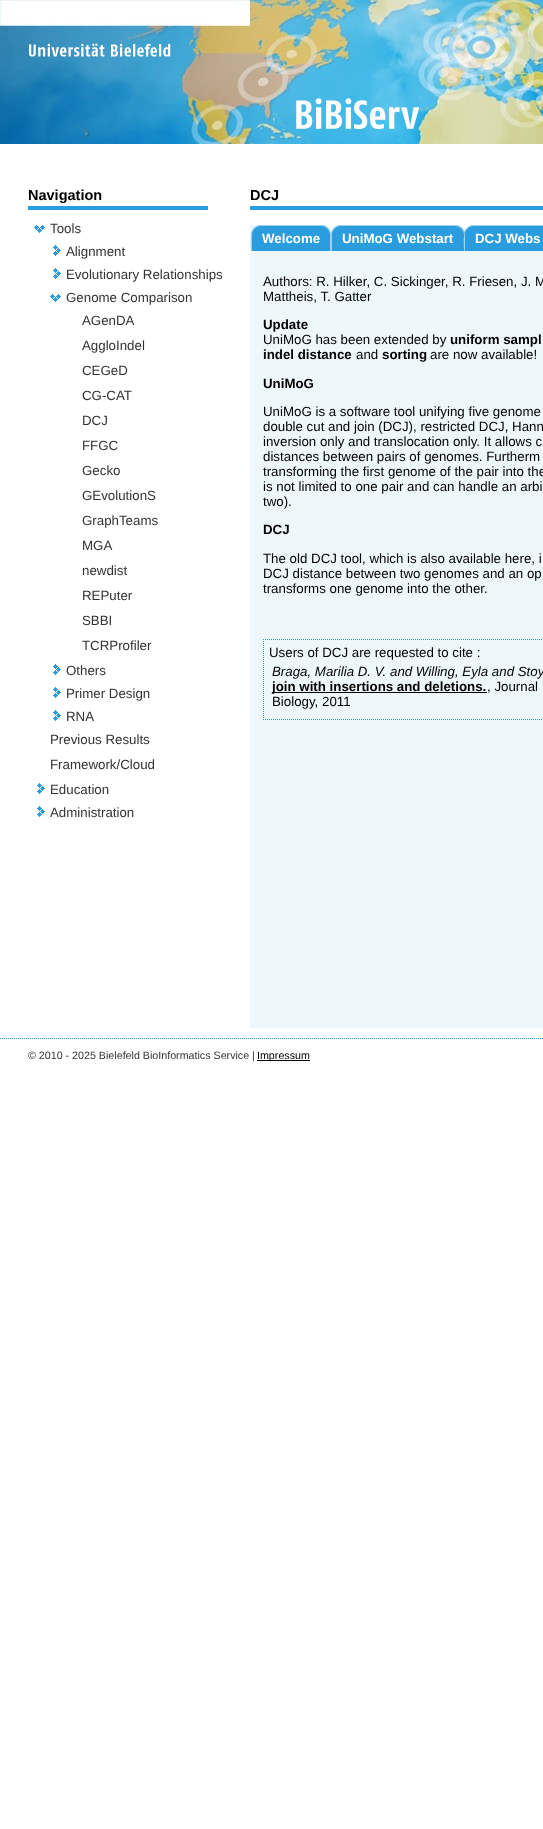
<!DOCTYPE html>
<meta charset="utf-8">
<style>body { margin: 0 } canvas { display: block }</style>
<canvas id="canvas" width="543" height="1829"></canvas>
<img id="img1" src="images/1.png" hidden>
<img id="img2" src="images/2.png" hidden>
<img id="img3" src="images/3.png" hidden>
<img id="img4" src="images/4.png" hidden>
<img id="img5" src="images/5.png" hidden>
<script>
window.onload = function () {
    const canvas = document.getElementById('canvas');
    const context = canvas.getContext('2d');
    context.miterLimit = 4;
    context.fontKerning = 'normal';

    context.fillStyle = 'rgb(255, 255, 255)';
    context.fillRect(0, 0, 543, 1829);
    context.drawImage(document.getElementById('img1'), 0, 0, 543, 144);
    context.drawImage(document.getElementById('img2'), 29, 42, 391, 87);
    context.fillStyle = 'rgb(42, 157, 223)';
    context.fillRect(28, 206, 180, 4);
    context.drawImage(document.getElementById('img3'), 34, 225, 11, 8);
    context.drawImage(document.getElementById('img4'), 53, 245, 8, 11);
    context.drawImage(document.getElementById('img5'), 53, 268, 8, 11);
    context.drawImage(document.getElementById('img3'), 50, 294, 11, 8);
    context.drawImage(document.getElementById('img5'), 53, 664, 8, 11);
    context.drawImage(document.getElementById('img5'), 53, 687, 8, 11);
    context.drawImage(document.getElementById('img5'), 53, 710, 8, 11);
    context.drawImage(document.getElementById('img5'), 37, 783, 8, 11);
    context.drawImage(document.getElementById('img5'), 37, 806, 8, 11);
    context.fillRect(250, 206, 293, 4);
    context.fillStyle = 'rgb(238, 247, 252)';
    context.fillRect(250, 225, 293, 803);
    context.fillStyle = 'rgb(255, 255, 255)';
    context.fillRect(255, 225, 219, 10);
    context.fillStyle = 'rgb(42, 157, 223)';
    context.beginPath();
    context.roundRect(251, 225, 80, 26, [10, 10, 0, 0]);
    context.fill();
    context.fillStyle = 'rgb(159, 211, 241)';
    context.beginPath();
    context.moveTo(261, 225);
    context.lineTo(321, 225);
    context.bezierCurveTo(327, 225, 331, 229, 331, 235);
    context.lineTo(331, 251);
    context.lineTo(251, 251);
    context.bezierCurveTo(251, 243, 248, 225, 261, 225);
    context.closePath();
    context.moveTo(261, 226);
    context.lineTo(321, 226);
    context.bezierCurveTo(326, 226, 330, 230, 330, 235);
    context.lineTo(330, 251);
    context.lineTo(252, 251);
    context.lineTo(252, 235);
    context.bezierCurveTo(252, 230, 256, 226, 261, 226);
    context.closePath();
    context.fill('evenodd');
    context.fillStyle = 'rgb(42, 157, 223)';
    context.beginPath();
    context.roundRect(331, 225, 134, 26, [10, 10, 0, 0]);
    context.fill();
    context.fillStyle = 'rgb(159, 211, 241)';
    context.beginPath();
    context.moveTo(341, 225);
    context.lineTo(455, 225);
    context.bezierCurveTo(461, 225, 465, 229, 465, 235);
    context.lineTo(465, 251);
    context.lineTo(331, 251);
    context.bezierCurveTo(331, 243, 328, 225, 341, 225);
    context.closePath();
    context.moveTo(341, 226);
    context.lineTo(455, 226);
    context.bezierCurveTo(460, 226, 464, 230, 464, 235);
    context.lineTo(464, 251);
    context.lineTo(332, 251);
    context.lineTo(332, 235);
    context.bezierCurveTo(332, 230, 336, 226, 341, 226);
    context.closePath();
    context.fill('evenodd');
    context.fillStyle = 'rgb(42, 157, 223)';
    context.beginPath();
    context.moveTo(474, 225);
    context.lineTo(543, 225);
    context.bezierCurveTo(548.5, 225, 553, 229.5, 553, 235);
    context.lineTo(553, 251);
    context.lineTo(464, 251);
    context.lineTo(464, 235);
    context.bezierCurveTo(464, 229.5, 468.5, 225, 474, 225);
    context.closePath();
    context.fill();
    context.fillStyle = 'rgb(159, 211, 241)';
    context.beginPath();
    context.moveTo(474, 225);
    context.lineTo(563, 225);
    context.bezierCurveTo(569, 225, 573, 229, 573, 235);
    context.lineTo(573, 251);
    context.lineTo(464, 251);
    context.bezierCurveTo(464, 243, 461, 225, 474, 225);
    context.closePath();
    context.moveTo(474, 226);
    context.lineTo(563, 226);
    context.bezierCurveTo(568, 226, 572, 230, 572, 235);
    context.lineTo(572, 251);
    context.lineTo(465, 251);
    context.lineTo(465, 235);
    context.bezierCurveTo(465, 230, 469, 226, 474, 226);
    context.closePath();
    context.fill('evenodd');
    context.beginPath();
    context.moveTo(263, 639.5);
    context.lineTo(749, 639.5);
    context.strokeStyle = 'rgb(42, 157, 223)';
    context.setLineDash([1, 1]);
    context.stroke();
    context.beginPath();
    context.moveTo(263, 719.5);
    context.lineTo(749, 719.5);
    context.stroke();
    context.beginPath();
    context.moveTo(263.5, 639);
    context.lineTo(263.5, 720);
    context.stroke();
    context.fillStyle = 'rgb(0, 0, 0)';
    context.fillRect(272, 692, 215, 1);
    context.beginPath();
    context.moveTo(0, 1038.5);
    context.lineTo(543, 1038.5);
    context.stroke();
    context.fillRect(257, 1060, 53, 1);
    context.font = 'bold 14.5px Liberation Sans';
    context.fillText('Navigation', 28, 200);
    context.font = '13.3px Liberation Sans';
    context.fillStyle = 'rgb(51, 51, 51)';
    context.fillText('Tools', 50, 233);
    context.fillText('Alignment', 66, 256);
    context.fillText('Evolutionary Relationships', 66, 279);
    context.fillText('Genome Comparison', 66, 302);
    context.fillText('AGenDA', 82, 325);
    context.fillText('AggloIndel', 82, 350);
    context.fillText('CEGeD', 82, 375);
    context.fillText('CG-CAT', 82, 400);
    context.fillText('DCJ', 82, 425);
    context.fillText('FFGC', 82, 450);
    context.fillText('Gecko', 82, 475);
    context.fillText('GEvolutionS', 82, 500);
    context.fillText('GraphTeams', 82, 525);
    context.fillText('MGA', 82, 550);
    context.fillText('newdist', 82, 575);
    context.fillText('REPuter', 82, 600);
    context.fillText('SBBI', 82, 625);
    context.fillText('TCRProfiler', 82, 650);
    context.fillText('Others', 66, 675);
    context.fillText('Primer Design', 66, 698);
    context.fillText('RNA', 66, 721);
    context.fillText('Previous Results', 50, 744);
    context.fillText('Framework/Cloud', 50, 769);
    context.fillText('Education', 50, 794);
    context.fillText('Administration', 50, 817);
    context.font = 'bold 14.5px Liberation Sans';
    context.fillStyle = 'rgb(0, 0, 0)';
    context.fillText('DCJ', 250, 200);
    context.font = 'bold 13.3px Liberation Sans';
    context.fillStyle = 'rgb(255, 255, 255)';
    context.fillText('Welcome', 262, 243);
    context.fillText('UniMoG Webstart', 342, 243);
    context.fillText('DCJ Webs', 475, 243);
    context.font = '13.3px Liberation Sans';
    context.fillStyle = 'rgb(0, 0, 0)';
    context.fillText('Authors: R. Hilker, C. Sickinger, R. Friesen, J. M', 263, 286);
    context.fillText('Mattheis, T. Gatter', 263, 301);
    context.font = 'bold 13.3px Liberation Sans';
    context.fillText('Update', 263, 329);
    context.font = '13.3px Liberation Sans';
    context.fillText('UniMoG has been extended by', 263, 344);
    context.font = 'bold 13.3px Liberation Sans';
    context.fillText('uniform sampl', 450, 344);
    context.fillText('indel distance', 263, 359);
    context.font = '13.3px Liberation Sans';
    context.fillText('and', 356, 359);
    context.font = 'bold 13.3px Liberation Sans';
    context.fillText('sorting', 382, 359);
    context.font = '13.3px Liberation Sans';
    context.fillText('are now available!', 430, 359);
    context.font = 'bold 13.3px Liberation Sans';
    context.fillText('UniMoG', 263, 388);
    context.font = '13.3px Liberation Sans';
    context.fillText('UniMoG is a software tool unifying five genome', 263, 416);
    context.fillText('double cut and join (DCJ), restricted DCJ, Hann', 263, 431);
    context.fillText('inversion only and translocation only. It allows c', 263, 446);
    context.fillText('distances between pairs of genomes. Furtherm', 263, 461);
    context.fillText('transforming the first genome of the pair into the', 263, 476);
    context.fillText('is not limited to one pair and can handle an arbi', 263, 491);
    context.fillText('two).', 263, 506);
    context.font = 'bold 13.3px Liberation Sans';
    context.fillText('DCJ', 263, 534);
    context.font = '13.3px Liberation Sans';
    context.fillText('The old DCJ tool, which is also available here, i', 263, 563);
    context.fillText('DCJ distance between two genomes and an op', 263, 578);
    context.fillText('transforms one genome into the other.', 263, 593);
    context.fillText('Users of DCJ are requested to cite :', 269, 657);
    context.font = 'italic 13.3px Liberation Sans';
    context.fillText('Braga, Marilia D. V. and Willing, Eyla and Stoy', 272, 676);
    context.font = 'bold 13.3px Liberation Sans';
    context.fillText('join with insertions and deletions.', 272, 691);
    context.font = '13.3px Liberation Sans';
    context.fillText(', Journal', 487, 691);
    context.fillText('Biology, 2011', 272, 706);
    context.font = '10.7px Liberation Sans';
    context.fillStyle = 'rgb(51, 51, 51)';
    context.fillText('© 2010 - 2025 Bielefeld BioInformatics Service |', 28, 1059);
    context.fillStyle = 'rgb(0, 0, 0)';
    context.fillText('Impressum', 257, 1059);
};
</script>
